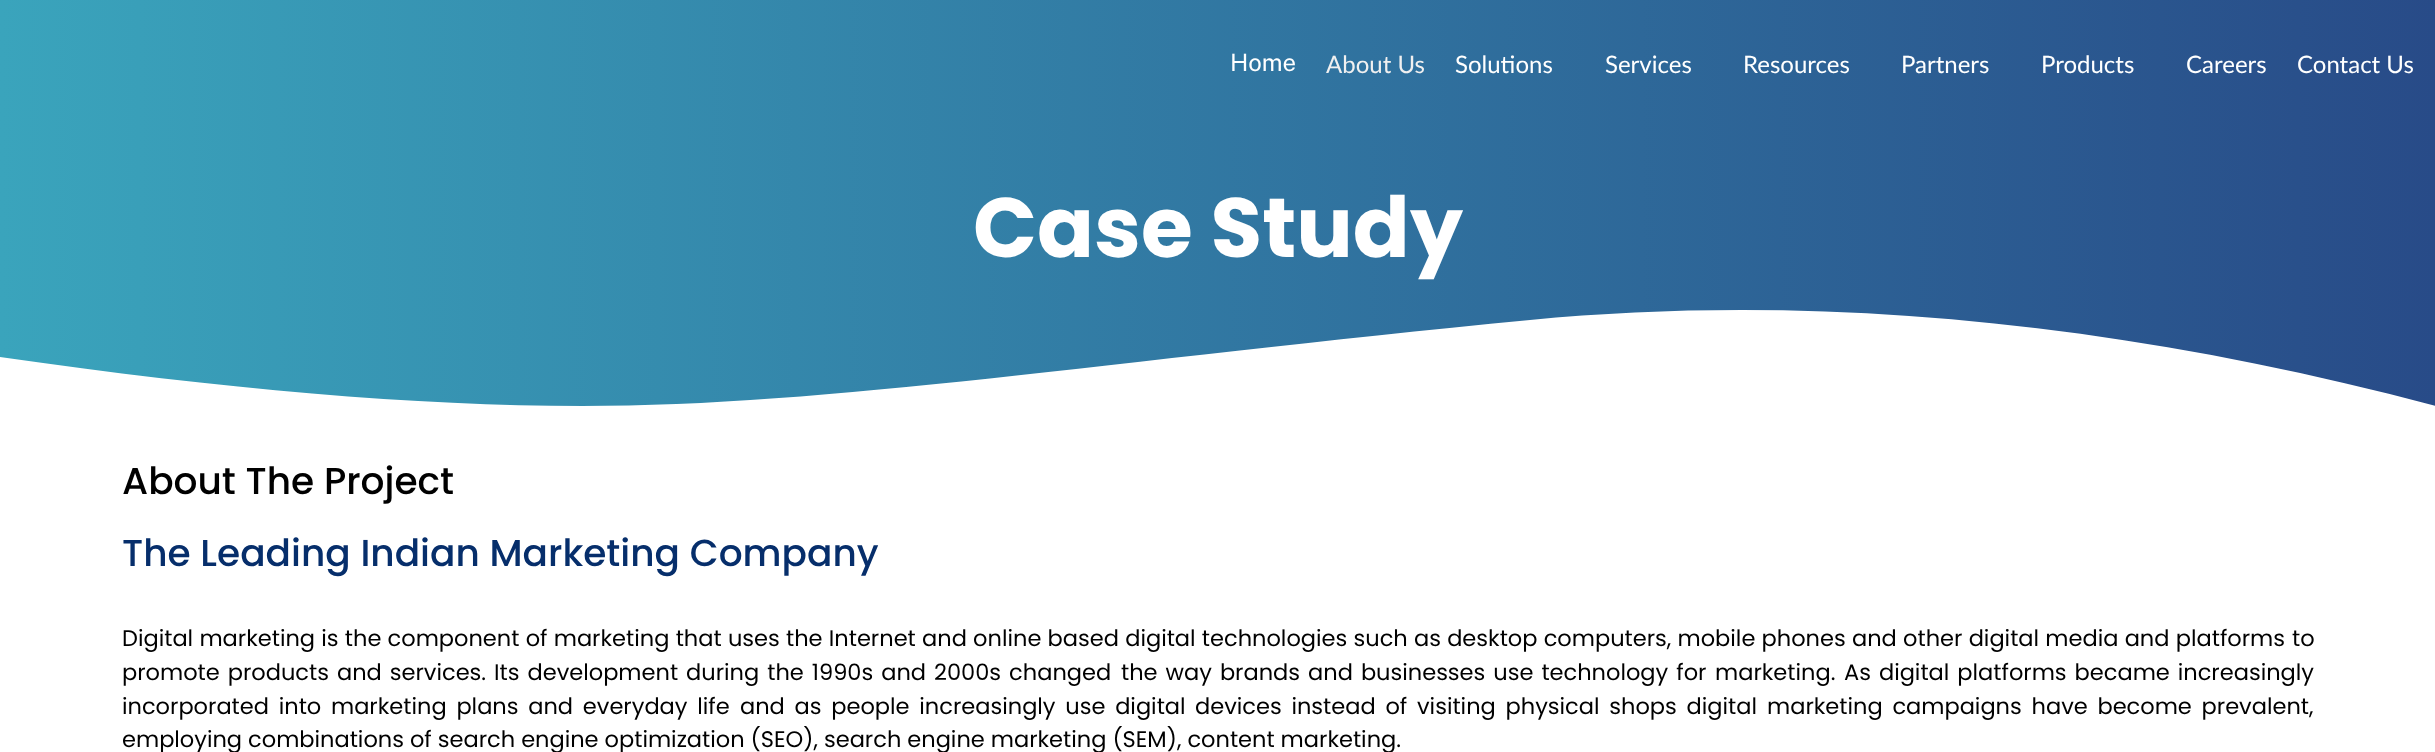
<!DOCTYPE html>
<meta charset="utf-8">
<style>body { margin: 0 } canvas { display: block }</style>
<canvas id="canvas" width="2435" height="752"></canvas>
<script>
window.onload = function () {
    const canvas = document.getElementById('canvas');
    const context = canvas.getContext('2d');
    context.miterLimit = 4;
    context.fontKerning = 'normal';
    let gradient;

    context.fillStyle = 'rgb(255, 255, 255)';
    context.fillRect(0, 0, 2435, 752);
    gradient = context.createLinearGradient(0, 226, 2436, 226);
    gradient.addColorStop(0, 'rgb(58, 164, 188)');
    gradient.addColorStop(1, 'rgb(40, 75, 136)');
    context.fillStyle = gradient;
    context.fillRect(0, 0, 2435, 406);
    context.save();
    context.beginPath();
    context.rect(0, 279, 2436, 173);
    context.clip();
    context.fillStyle = 'rgb(255, 255, 255)';
    context.beginPath();
    context.moveTo(0, 357);
    context.bezierCurveTo(222, 389, 416, 406, 582, 406);
    context.bezierCurveTo(831, 406, 1105, 361, 1530, 320);
    context.bezierCurveTo(1814, 293, 2116, 321, 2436, 406);
    context.lineTo(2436, 646);
    context.lineTo(0, 646);
    context.closePath();
    context.fill('evenodd');
    context.restore();
    context.font = '24px Public Sans';
    context.fillStyle = 'rgb(255, 255, 255)';
    context.fillText('Home', 1230, 71);
    context.font = '24px Lato';
    context.fillStyle = 'rgb(240, 240, 240)';
    context.fillText('About Us', 1326, 73);
    context.fillStyle = 'rgb(255, 255, 255)';
    context.fillText('Solutions', 1455, 73);
    context.fillText('Services', 1605, 73);
    context.fillText('Resources', 1743, 73);
    context.fillText('Partners', 1901, 73);
    context.fillText('Products', 2041, 73);
    context.fillText('Careers', 2186, 73);
    context.fillText('Contact Us', 2297, 73);
    context.font = 'bold 84px Poppins';
    context.fillText('Case Study', 973, 257);
    context.font = '500 37.5px Poppins';
    context.fillStyle = 'rgb(0, 0, 0)';
    context.fillText('About The Project', 122, 494);
    context.fillStyle = 'rgb(6, 46, 107)';
    context.fillText('The Leading Indian Marketing Company', 122, 566);
    context.wordSpacing = '0.25px';
    context.font = '22.5px Poppins';
    context.fillStyle = 'rgb(0, 0, 0)';
    context.fillText('Digital marketing is the component of marketing that uses the Internet and online based digital technologies such as desktop computers, mobile phones and other digital media and platforms', 122, 646);
    context.wordSpacing = '0px';
    context.fillText('to', 2292, 646);
    context.wordSpacing = '2px';
    context.fillText('promote products and services.', 122, 680);
    context.fillText('Its development during the 1990s and 2000s changed', 494, 680);
    context.fillText('the way brands and businesses use technology for', 1121, 680);
    context.wordSpacing = '0px';
    context.fillText('marketing.', 1715, 680);
    context.wordSpacing = '2px';
    context.fillText('As digital platforms became increasingly', 1844, 680);
    context.wordSpacing = '3.75px';
    context.fillText('incorporated into marketing plans and everyday life', 122, 714);
    context.fillText('and as people increasingly use digital', 740, 714);
    context.fillText('devices instead of visiting physical shops digital', 1195, 714);
    context.fillText('marketing campaigns have become prevalent,', 1767, 714);
    context.wordSpacing = '0px';
    context.fillText('employing combinations of search engine optimization (SEO), search engine marketing (SEM), content marketing.', 122, 747);
};
</script>
